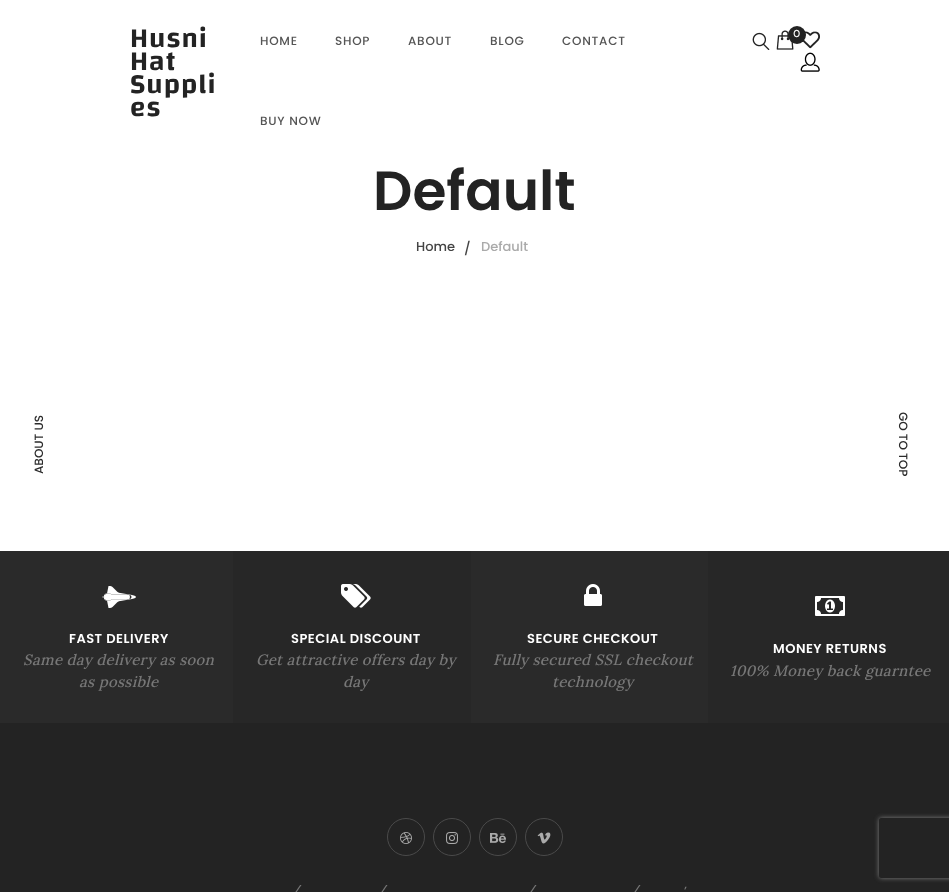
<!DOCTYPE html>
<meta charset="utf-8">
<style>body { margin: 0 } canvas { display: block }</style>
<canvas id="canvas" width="949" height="892"></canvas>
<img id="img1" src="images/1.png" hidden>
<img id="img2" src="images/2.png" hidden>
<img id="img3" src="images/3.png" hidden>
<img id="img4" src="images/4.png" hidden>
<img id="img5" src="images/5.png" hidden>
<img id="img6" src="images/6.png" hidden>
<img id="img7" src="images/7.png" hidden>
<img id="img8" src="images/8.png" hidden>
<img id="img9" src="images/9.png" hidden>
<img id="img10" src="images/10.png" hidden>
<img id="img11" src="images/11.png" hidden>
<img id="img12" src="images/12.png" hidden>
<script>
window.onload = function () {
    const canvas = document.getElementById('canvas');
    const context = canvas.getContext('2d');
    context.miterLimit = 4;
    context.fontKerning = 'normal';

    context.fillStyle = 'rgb(255, 255, 255)';
    context.fillRect(0, 0, 949, 892);
    context.drawImage(document.getElementById('img1'), 752, 32, 18, 18);
    context.drawImage(document.getElementById('img2'), 776, 30, 18, 20);
    context.drawImage(document.getElementById('img3'), 802, 31, 18, 18);
    context.fillStyle = 'rgb(35, 35, 35)';
    context.beginPath();
    context.arc(797, 35, 9, 0, 2 * Math.PI);
    context.fill();
    context.drawImage(document.getElementById('img4'), 800, 52, 20, 20);
    context.fillStyle = 'rgb(42, 42, 42)';
    context.fillRect(0, 551, 233, 172);
    context.drawImage(document.getElementById('img5'), 102, 586, 34, 22);
    context.fillStyle = 'rgb(39, 39, 39)';
    context.fillRect(237, 551, 234, 172);
    context.drawImage(document.getElementById('img6'), 341, 584, 30, 24);
    context.save();
    context.beginPath();
    context.rect(0, 551, 949, 172);
    context.clip();
    context.strokeStyle = 'rgb(39, 39, 39)';
    context.lineWidth = 4;
    context.strokeRect(235, 549, 242, 176);
    context.restore();
    context.fillStyle = 'rgb(42, 42, 42)';
    context.fillRect(475, 551, 233, 172);
    context.drawImage(document.getElementById('img7'), 584, 584, 18, 22);
    context.save();
    context.beginPath();
    context.rect(0, 551, 949, 172);
    context.clip();
    context.strokeStyle = 'rgb(42, 42, 42)';
    context.lineWidth = 4;
    context.strokeRect(473, 549, 241, 176);
    context.restore();
    context.fillStyle = 'rgb(39, 39, 39)';
    context.fillRect(712, 551, 237, 172);
    context.drawImage(document.getElementById('img8'), 815, 596, 30, 20);
    context.save();
    context.beginPath();
    context.rect(0, 551, 949, 172);
    context.clip();
    context.strokeStyle = 'rgb(39, 39, 39)';
    context.lineWidth = 4;
    context.strokeRect(710, 549, 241, 176);
    context.restore();
    context.fillStyle = 'rgb(35, 35, 35)';
    context.fillRect(0, 723, 949, 169);
    context.beginPath();
    context.arc(406, 837, 18.5, 0, 2 * Math.PI);
    context.strokeStyle = 'rgb(74, 74, 74)';
    context.stroke();
    context.drawImage(document.getElementById('img9'), 400, 832, 12, 12);
    context.beginPath();
    context.arc(452, 837, 18.5, 0, 2 * Math.PI);
    context.stroke();
    context.drawImage(document.getElementById('img10'), 446, 832, 12, 12);
    context.beginPath();
    context.arc(498, 837, 18.5, 0, 2 * Math.PI);
    context.stroke();
    context.drawImage(document.getElementById('img11'), 490, 833, 16, 10);
    context.beginPath();
    context.arc(544, 837, 18.5, 0, 2 * Math.PI);
    context.stroke();
    context.drawImage(document.getElementById('img12'), 537, 832, 14, 12);
    context.save();
    context.beginPath();
    context.moveTo(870, 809);
    context.lineTo(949, 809);
    context.lineTo(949, 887);
    context.lineTo(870, 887);
    context.closePath();
    context.moveTo(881, 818);
    context.lineTo(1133, 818);
    context.bezierCurveTo(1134, 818, 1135, 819, 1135, 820);
    context.lineTo(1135, 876);
    context.bezierCurveTo(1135, 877, 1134, 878, 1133, 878);
    context.lineTo(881, 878);
    context.bezierCurveTo(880, 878, 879, 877, 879, 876);
    context.lineTo(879, 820);
    context.bezierCurveTo(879, 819, 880, 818, 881, 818);
    context.closePath();
    context.clip('evenodd');
    context.fillStyle = 'rgb(128, 128, 128)';
    context.filter = 'blur(2.5px)';
    context.beginPath();
    context.roundRect(879, 818, 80, 60, 2);
    context.fill();
    context.filter = 'none';
    context.restore();
    context.letterSpacing = '1px';
    context.font = '600 28px Changa';
    context.fillText('Husni', 130, 47);
    context.fillText('Hat', 130, 70);
    context.fillText('Suppli', 130, 93);
    context.fillText('es', 130, 116);
    context.letterSpacing = '0px';
    context.font = '500 12px Raleway';
    context.fillStyle = 'rgb(255, 255, 255)';
    context.fillText('0', 793, 37);
    context.letterSpacing = '0.75px';
    context.font = '500 12px Poppins';
    context.fillStyle = 'rgb(85, 85, 85)';
    context.fillText('HOME', 260, 45);
    context.fillText('SHOP', 335, 45);
    context.fillText('ABOUT', 408, 45);
    context.fillText('BLOG', 490, 45);
    context.fillText('CONTACT', 562, 45);
    context.fillText('BUY NOW', 260, 125);
    context.letterSpacing = '0px';
    context.font = '600 55px Poppins';
    context.fillStyle = 'rgb(35, 35, 35)';
    context.fillText('Default', 373, 210);
    context.font = '500 13px Poppins';
    context.fillStyle = 'rgb(68, 68, 68)';
    context.fillText('Home', 416, 251);
    context.fillText('/', 464, 253);
    context.fillStyle = 'rgb(170, 170, 170)';
    context.fillText('Default', 481, 251);
    context.letterSpacing = '0.5px';
    context.font = '600 13px Poppins';
    context.fillStyle = 'rgb(255, 255, 255)';
    context.fillText('FAST DELIVERY', 69, 643);
    context.letterSpacing = '0.3px';
    context.font = 'italic 500 15px Lora';
    context.fillStyle = 'rgb(119, 119, 119)';
    context.fillText('Same day delivery as soon', 23, 665);
    context.fillText('as possible', 79, 687);
    context.letterSpacing = '0.5px';
    context.font = '600 13px Poppins';
    context.fillStyle = 'rgb(255, 255, 255)';
    context.fillText('SPECIAL DISCOUNT', 291, 643);
    context.letterSpacing = '0.3px';
    context.font = 'italic 500 15px Lora';
    context.fillStyle = 'rgb(119, 119, 119)';
    context.fillText('Get attractive offers day by', 256, 665);
    context.fillText('day', 343, 687);
    context.letterSpacing = '0.5px';
    context.font = '600 13px Poppins';
    context.fillStyle = 'rgb(255, 255, 255)';
    context.fillText('SECURE CHECKOUT', 527, 643);
    context.letterSpacing = '0.3px';
    context.font = 'italic 500 15px Lora';
    context.fillStyle = 'rgb(119, 119, 119)';
    context.fillText('Fully secured SSL checkout', 493, 665);
    context.fillText('technology', 552, 687);
    context.letterSpacing = '0.5px';
    context.font = '600 13px Poppins';
    context.fillStyle = 'rgb(255, 255, 255)';
    context.fillText('MONEY RETURNS', 773, 653);
    context.letterSpacing = '0.3px';
    context.font = 'italic 500 15px Lora';
    context.fillStyle = 'rgb(119, 119, 119)';
    context.fillText('100% Money back guarntee', 730, 676);
    context.letterSpacing = '0px';
    context.font = '500 14px Raleway';
    context.fillText('/', 293, 895);
    context.fillText('/', 379, 895);
    context.fillText('/', 528, 895);
    context.fillText('/', 632, 895);
    context.font = '500 12px Poppins';
    context.fillText('’', 684, 895);
    context.fillStyle = 'rgb(43, 43, 43)';
    context.save();
    context.translate(43, 474);
    context.rotate(-90 * Math.PI / 180);
    context.fillText('ABOUT US', 0, 0);
    context.restore();
    context.save();
    context.translate(899, 412);
    context.rotate(90 * Math.PI / 180);
    context.fillText('GO TO TOP', 0, 0);
    context.restore();
};
</script>
